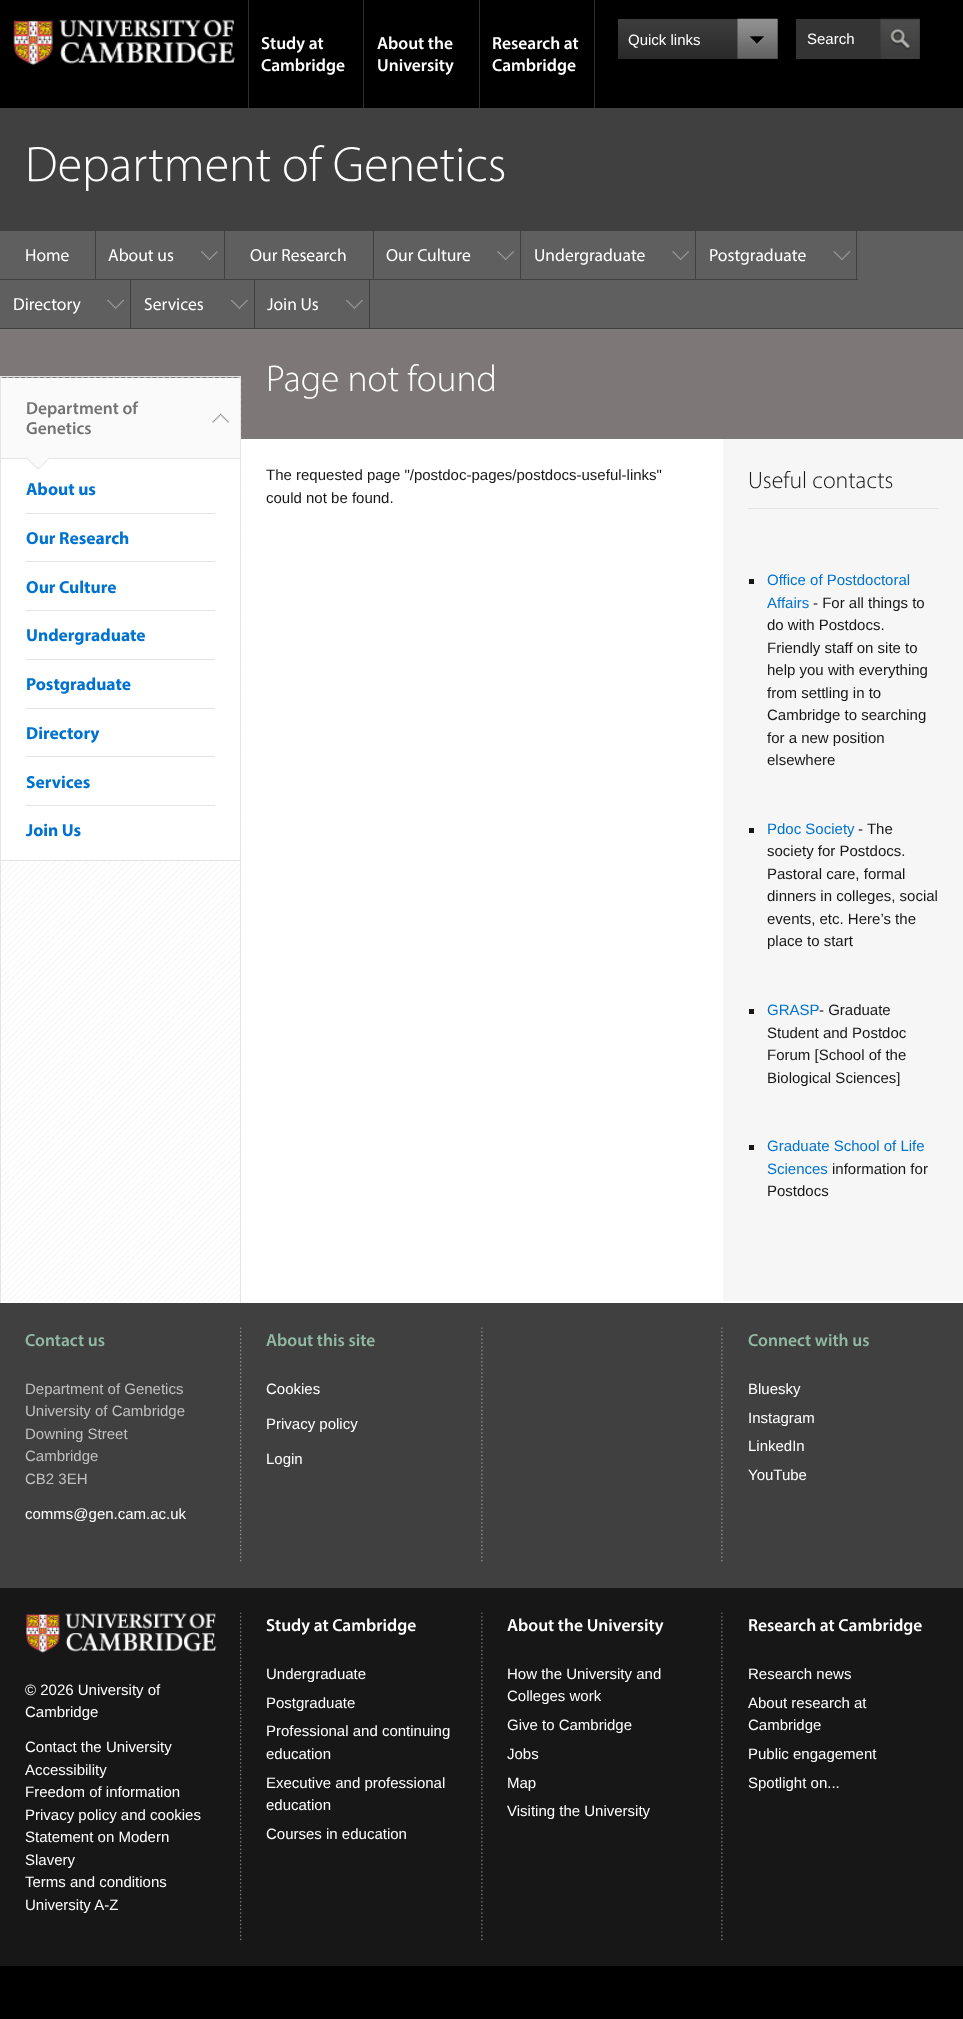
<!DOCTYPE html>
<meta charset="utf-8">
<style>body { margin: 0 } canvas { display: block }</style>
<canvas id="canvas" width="963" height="2019"></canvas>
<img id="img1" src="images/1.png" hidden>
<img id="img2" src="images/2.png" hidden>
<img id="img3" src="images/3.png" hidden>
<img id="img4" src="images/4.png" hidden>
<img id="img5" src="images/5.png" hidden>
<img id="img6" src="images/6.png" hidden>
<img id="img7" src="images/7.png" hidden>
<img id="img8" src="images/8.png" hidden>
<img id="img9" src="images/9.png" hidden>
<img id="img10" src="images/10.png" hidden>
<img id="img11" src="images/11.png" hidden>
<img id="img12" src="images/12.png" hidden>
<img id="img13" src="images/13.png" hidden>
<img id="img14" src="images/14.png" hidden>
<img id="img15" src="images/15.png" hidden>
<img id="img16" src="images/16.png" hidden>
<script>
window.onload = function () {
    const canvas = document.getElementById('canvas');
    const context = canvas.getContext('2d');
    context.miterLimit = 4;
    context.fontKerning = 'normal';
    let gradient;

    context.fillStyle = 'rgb(0, 0, 0)';
    context.fillRect(0, 0, 963, 2019);
    context.drawImage(document.getElementById('img1'), 13, 19, 222, 47);
    context.fillStyle = 'rgb(46, 46, 46)';
    context.fillRect(248, 0, 1, 108);
    context.fillRect(363, 0, 1, 108);
    context.fillRect(479, 0, 1, 108);
    context.fillRect(594, 0, 1, 108);
    gradient = context.createLinearGradient(698, 19, 698, 59);
    gradient.addColorStop(0, 'rgb(61, 61, 61)');
    gradient.addColorStop(1, 'rgb(41, 41, 41)');
    context.fillStyle = gradient;
    context.fillRect(618, 19, 160, 40);
    context.drawImage(document.getElementById('img2'), 737, 18, 41, 41);
    context.fillStyle = 'rgb(52, 52, 52)';
    context.fillRect(796, 19, 124, 40);
    context.drawImage(document.getElementById('img3'), 880, 18, 40, 41);
    context.fillStyle = 'rgb(64, 64, 64)';
    context.fillRect(0, 108, 963, 122);
    context.fillStyle = 'rgb(95, 95, 95)';
    context.fillRect(370, 231, 593, 97);
    context.fillStyle = 'rgb(64, 64, 64)';
    context.fillRect(858, 230, 105, 1);
    context.fillRect(370, 328, 593, 1);
    context.fillStyle = 'rgb(95, 95, 95)';
    context.fillRect(0, 231, 95, 48);
    context.fillStyle = 'rgb(64, 64, 64)';
    context.fillRect(0, 230, 96, 1);
    context.fillRect(95, 230, 1, 50);
    context.fillStyle = 'rgb(95, 95, 95)';
    context.fillRect(96, 231, 128, 48);
    context.drawImage(document.getElementById('img4'), 201, 251, 17, 9);
    context.fillStyle = 'rgb(64, 64, 64)';
    context.fillRect(96, 230, 762, 1);
    context.fillRect(224, 230, 1, 50);
    context.fillStyle = 'rgb(95, 95, 95)';
    context.fillRect(225, 231, 145, 48);
    context.fillStyle = 'rgb(64, 64, 64)';
    context.fillRect(373, 230, 1, 50);
    context.fillRect(370, 279, 4, 1);
    context.drawImage(document.getElementById('img5'), 497, 251, 17, 9);
    context.fillRect(520, 230, 1, 50);
    context.fillRect(374, 279, 147, 1);
    context.drawImage(document.getElementById('img5'), 672, 251, 17, 9);
    context.fillRect(695, 230, 1, 50);
    context.fillRect(521, 279, 175, 1);
    context.drawImage(document.getElementById('img6'), 833, 251, 18, 9);
    context.fillRect(856, 230, 1, 50);
    context.fillRect(696, 279, 162, 1);
    context.fillStyle = 'rgb(95, 95, 95)';
    context.fillRect(0, 280, 130, 48);
    context.drawImage(document.getElementById('img7'), 107, 300, 17, 9);
    context.fillStyle = 'rgb(64, 64, 64)';
    context.fillRect(0, 279, 370, 1);
    context.fillRect(130, 279, 1, 50);
    context.fillRect(0, 328, 131, 1);
    context.fillStyle = 'rgb(95, 95, 95)';
    context.fillRect(131, 280, 123, 48);
    context.drawImage(document.getElementById('img8'), 231, 300, 17, 9);
    context.fillStyle = 'rgb(64, 64, 64)';
    context.fillRect(254, 279, 1, 50);
    context.fillRect(131, 328, 124, 1);
    context.fillStyle = 'rgb(95, 95, 95)';
    context.fillRect(255, 280, 114, 48);
    context.drawImage(document.getElementById('img8'), 346, 300, 17, 9);
    context.fillStyle = 'rgb(64, 64, 64)';
    context.fillRect(369, 279, 1, 50);
    context.fillRect(255, 328, 115, 1);
    context.fillStyle = 'rgb(125, 119, 119)';
    context.fillRect(0, 329, 963, 110);
    context.fillStyle = 'rgb(255, 255, 255)';
    context.fillRect(1, 439, 962, 864);
    context.drawImage(document.getElementById('img9'), 1, 377, 241, 925);
    context.fillStyle = 'rgb(228, 228, 228)';
    context.fillRect(0, 376, 241, 1);
    context.fillRect(240, 376, 1, 927);
    context.fillRect(0, 376, 1, 927);
    context.fillStyle = 'rgb(255, 255, 255)';
    context.fillRect(1, 459, 239, 401);
    context.fillStyle = 'rgb(228, 228, 228)';
    context.fillRect(1, 860, 239, 1);
    context.fillStyle = 'rgb(250, 250, 250)';
    context.fillRect(1, 378, 239, 80);
    context.drawImage(document.getElementById('img10'), 212, 413, 17, 10);
    context.fillStyle = 'rgb(228, 228, 228)';
    context.fillRect(1, 458, 239, 1);
    context.drawImage(document.getElementById('img11'), 26, 457, 24, 12);
    context.fillRect(26, 513, 189, 1);
    context.fillRect(26, 561, 189, 1);
    context.fillRect(26, 610, 189, 1);
    context.fillRect(26, 659, 189, 1);
    context.fillRect(26, 708, 189, 1);
    context.fillRect(26, 756, 189, 1);
    context.fillRect(26, 805, 189, 1);
    context.fillStyle = 'rgb(246, 246, 246)';
    context.fillRect(723, 439, 240, 862);
    context.fillStyle = 'rgb(228, 228, 228)';
    context.fillRect(748, 508, 191, 1);
    context.fillStyle = 'rgb(23, 23, 23)';
    context.fillRect(749, 579, 5, 5);
    context.fillRect(749, 828, 5, 5);
    context.fillRect(749, 1009, 5, 5);
    context.fillRect(749, 1145, 5, 5);
    context.fillStyle = 'rgb(64, 64, 64)';
    context.fillRect(0, 1303, 963, 285);
    context.drawImage(document.getElementById('img12'), 240, 1327, 2, 235);
    context.drawImage(document.getElementById('img13'), 481, 1327, 2, 235);
    context.drawImage(document.getElementById('img13'), 721, 1327, 2, 235);
    context.fillStyle = 'rgb(23, 23, 23)';
    context.fillRect(0, 1588, 963, 378);
    context.drawImage(document.getElementById('img14'), 240, 1612, 2, 329);
    context.drawImage(document.getElementById('img15'), 26, 1613, 191, 40);
    context.drawImage(document.getElementById('img16'), 481, 1612, 2, 329);
    context.drawImage(document.getElementById('img16'), 721, 1612, 2, 329);
    context.font = '600 17.5px Myriad';
    context.fillStyle = 'rgb(255, 255, 255)';
    context.fillText('Study at', 261, 49);
    context.fillText('Cambridge', 261, 71);
    context.fillText('About the', 377, 49);
    context.fillText('University', 377, 71);
    context.fillText('Research at', 492, 49);
    context.fillText('Cambridge', 492, 71);
    context.font = '15px Liberation Sans';
    context.fillText('Quick links', 628, 45);
    context.fillText('Search', 807, 44);
    context.font = '300 50px Myriad';
    context.fillText('Department of Genetics', 25, 181);
    context.font = '17.5px Myriad';
    context.fillText('Home', 25, 261);
    context.fillText('About us', 108, 261);
    context.fillText('Our Research', 250, 261);
    context.fillText('Our Culture', 386, 261);
    context.fillText('Undergraduate', 534, 261);
    context.fillText('Postgraduate', 709, 261);
    context.fillText('Directory', 13, 310);
    context.fillText('Services', 144, 310);
    context.fillText('Join Us', 267, 310);
    context.font = '300 37.5px Myriad';
    context.fillText('Page not found', 266, 391);
    context.font = '600 17.5px Myriad';
    context.fillStyle = 'rgb(115, 115, 115)';
    context.fillText('Department of', 26, 414);
    context.fillText('Genetics', 26, 434);
    context.font = 'bold 17.5px Myriad';
    context.fillStyle = 'rgb(0, 114, 207)';
    context.fillText('About us', 26, 495);
    context.fillText('Our Research', 26, 544);
    context.fillText('Our Culture', 26, 593);
    context.fillText('Undergraduate', 26, 641);
    context.fillText('Postgraduate', 26, 690);
    context.fillText('Directory', 26, 739);
    context.fillText('Services', 26, 788);
    context.fillText('Join Us', 26, 836);
    context.font = '15px Liberation Sans';
    context.fillStyle = 'rgb(23, 23, 23)';
    context.fillText('The requested page "/postdoc-pages/postdocs-useful-links"', 266, 480);
    context.fillText('could not be found.', 266, 503);
    context.font = '300 23.75px Myriad';
    context.fillText('Useful contacts', 748, 488);
    context.font = '15px Liberation Sans';
    context.fillStyle = 'rgb(0, 114, 207)';
    context.fillText('Office of Postdoctoral', 767, 585);
    context.fillText('Affairs', 767, 608);
    context.fillStyle = 'rgb(23, 23, 23)';
    context.fillText('- For all things to', 813, 608);
    context.fillText('do with Postdocs.', 767, 630);
    context.fillText('Friendly staff on site to', 767, 653);
    context.fillText('help you with everything', 767, 675);
    context.fillText('from settling in to', 767, 698);
    context.fillText('Cambridge to searching', 767, 720);
    context.fillText('for a new position', 767, 743);
    context.fillText('elsewhere', 767, 765);
    context.fillStyle = 'rgb(0, 114, 207)';
    context.fillText('Pdoc Society', 767, 834);
    context.fillStyle = 'rgb(23, 23, 23)';
    context.fillText('- The', 858, 834);
    context.fillText('society for Postdocs.', 767, 856);
    context.fillText('Pastoral care, formal', 767, 879);
    context.fillText('dinners in colleges, social', 767, 901);
    context.fillText('events, etc. Here’s the', 767, 924);
    context.fillText('place to start', 767, 946);
    context.fillStyle = 'rgb(0, 114, 207)';
    context.fillText('GRASP', 767, 1015);
    context.fillStyle = 'rgb(23, 23, 23)';
    context.fillText('- Graduate', 819, 1015);
    context.fillText('Student and Postdoc', 767, 1038);
    context.fillText('Forum [School of the', 767, 1060);
    context.fillText('Biological Sciences]', 767, 1083);
    context.fillStyle = 'rgb(0, 114, 207)';
    context.fillText('Graduate School of Life', 767, 1151);
    context.fillText('Sciences', 767, 1174);
    context.fillStyle = 'rgb(23, 23, 23)';
    context.fillText('information for', 832, 1174);
    context.fillText('Postdocs', 767, 1196);
    context.font = '600 17.5px Myriad';
    context.fillStyle = 'rgb(145, 185, 164)';
    context.fillText('Contact us', 25, 1346);
    context.font = '15px Liberation Sans';
    context.fillStyle = 'rgb(192, 192, 192)';
    context.fillText('Department of Genetics', 25, 1394);
    context.fillText('University of Cambridge', 25, 1416);
    context.fillText('Downing Street', 25, 1439);
    context.fillText('Cambridge', 25, 1461);
    context.fillText('CB2 3EH', 25, 1484);
    context.fillStyle = 'rgb(255, 255, 255)';
    context.fillText('comms@gen.cam.ac.uk', 25, 1519);
    context.font = '600 17.5px Myriad';
    context.fillStyle = 'rgb(145, 185, 164)';
    context.fillText('About this site', 266, 1346);
    context.font = '15px Liberation Sans';
    context.fillStyle = 'rgb(255, 255, 255)';
    context.fillText('Cookies', 266, 1394);
    context.fillText('Privacy policy', 266, 1429);
    context.fillText('Login', 266, 1464);
    context.font = '600 17.5px Myriad';
    context.fillStyle = 'rgb(145, 185, 164)';
    context.fillText('Connect with us', 748, 1346);
    context.font = '15px Liberation Sans';
    context.fillStyle = 'rgb(255, 255, 255)';
    context.fillText('Bluesky', 748, 1394);
    context.fillText('Instagram', 748, 1423);
    context.fillText('LinkedIn', 748, 1451);
    context.fillText('YouTube', 748, 1480);
    context.fillText('© 2026 University of', 25, 1695);
    context.fillText('Cambridge', 25, 1717);
    context.fillText('Contact the University', 25, 1752);
    context.fillText('Accessibility', 25, 1775);
    context.fillText('Freedom of information', 25, 1797);
    context.fillText('Privacy policy and cookies', 25, 1820);
    context.fillText('Statement on Modern', 25, 1842);
    context.fillText('Slavery', 25, 1865);
    context.fillText('Terms and conditions', 25, 1887);
    context.fillText('University A-Z', 25, 1910);
    context.font = '600 17.5px Myriad';
    context.fillText('Study at Cambridge', 266, 1631);
    context.font = '15px Liberation Sans';
    context.fillText('Undergraduate', 266, 1679);
    context.fillText('Postgraduate', 266, 1708);
    context.fillText('Professional and continuing', 266, 1736);
    context.fillText('education', 266, 1759);
    context.fillText('Executive and professional', 266, 1788);
    context.fillText('education', 266, 1810);
    context.fillText('Courses in education', 266, 1839);
    context.font = '600 17.5px Myriad';
    context.fillText('About the University', 507, 1631);
    context.font = '15px Liberation Sans';
    context.fillText('How the University and', 507, 1679);
    context.fillText('Colleges work', 507, 1701);
    context.fillText('Give to Cambridge', 507, 1730);
    context.fillText('Jobs', 507, 1759);
    context.fillText('Map', 507, 1788);
    context.fillText('Visiting the University', 507, 1816);
    context.font = '600 17.5px Myriad';
    context.fillText('Research at Cambridge', 748, 1631);
    context.font = '15px Liberation Sans';
    context.fillText('Research news', 748, 1679);
    context.fillText('About research at', 748, 1708);
    context.fillText('Cambridge', 748, 1730);
    context.fillText('Public engagement', 748, 1759);
    context.fillText('Spotlight on...', 748, 1788);
};
</script>
